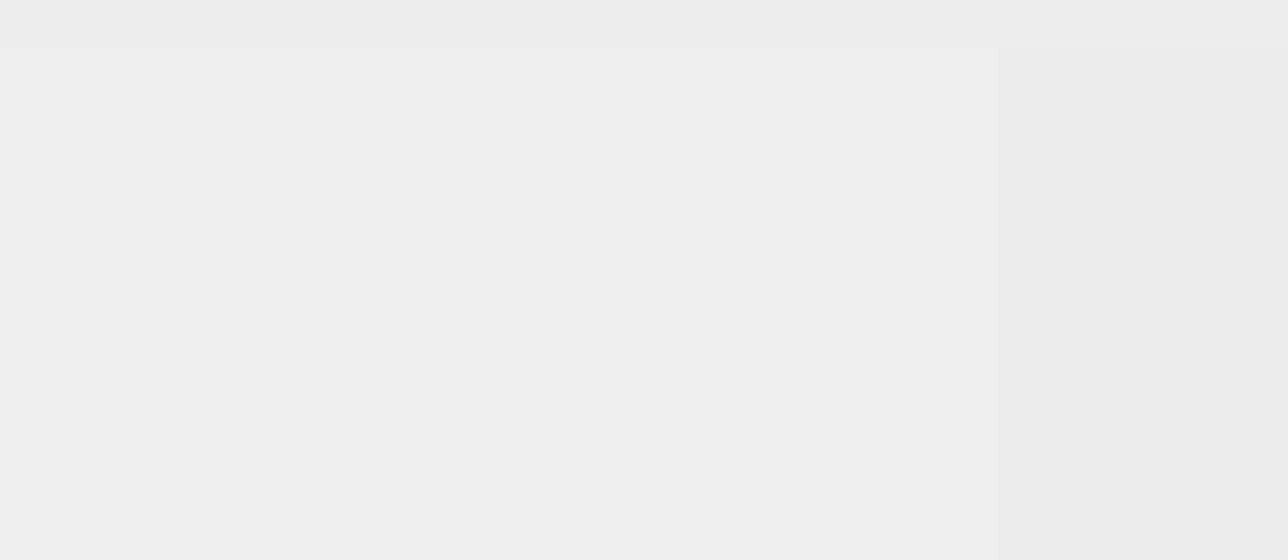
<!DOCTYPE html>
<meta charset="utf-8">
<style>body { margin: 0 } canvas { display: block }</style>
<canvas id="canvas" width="1288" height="560"></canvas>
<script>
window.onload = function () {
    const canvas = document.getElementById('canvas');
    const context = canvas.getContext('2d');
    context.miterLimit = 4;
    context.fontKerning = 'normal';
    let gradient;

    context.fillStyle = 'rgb(255, 255, 255)';
    context.fillRect(0, 0, 1288, 560);
    gradient = context.createLinearGradient(0, 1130, 1288, 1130);
    gradient.addColorStop(0, 'rgb(239, 239, 239)');
    gradient.addColorStop(1, 'rgb(239, 239, 239)');
    context.fillStyle = gradient;
    context.fillRect(0, 48, 998, 512);
    context.fillStyle = 'rgb(237, 237, 237)';
    context.fillRect(0, 0, 1288, 48);
    context.fillStyle = 'rgb(236, 236, 236)';
    context.fillRect(998, 48, 290, 512);
};
</script>
